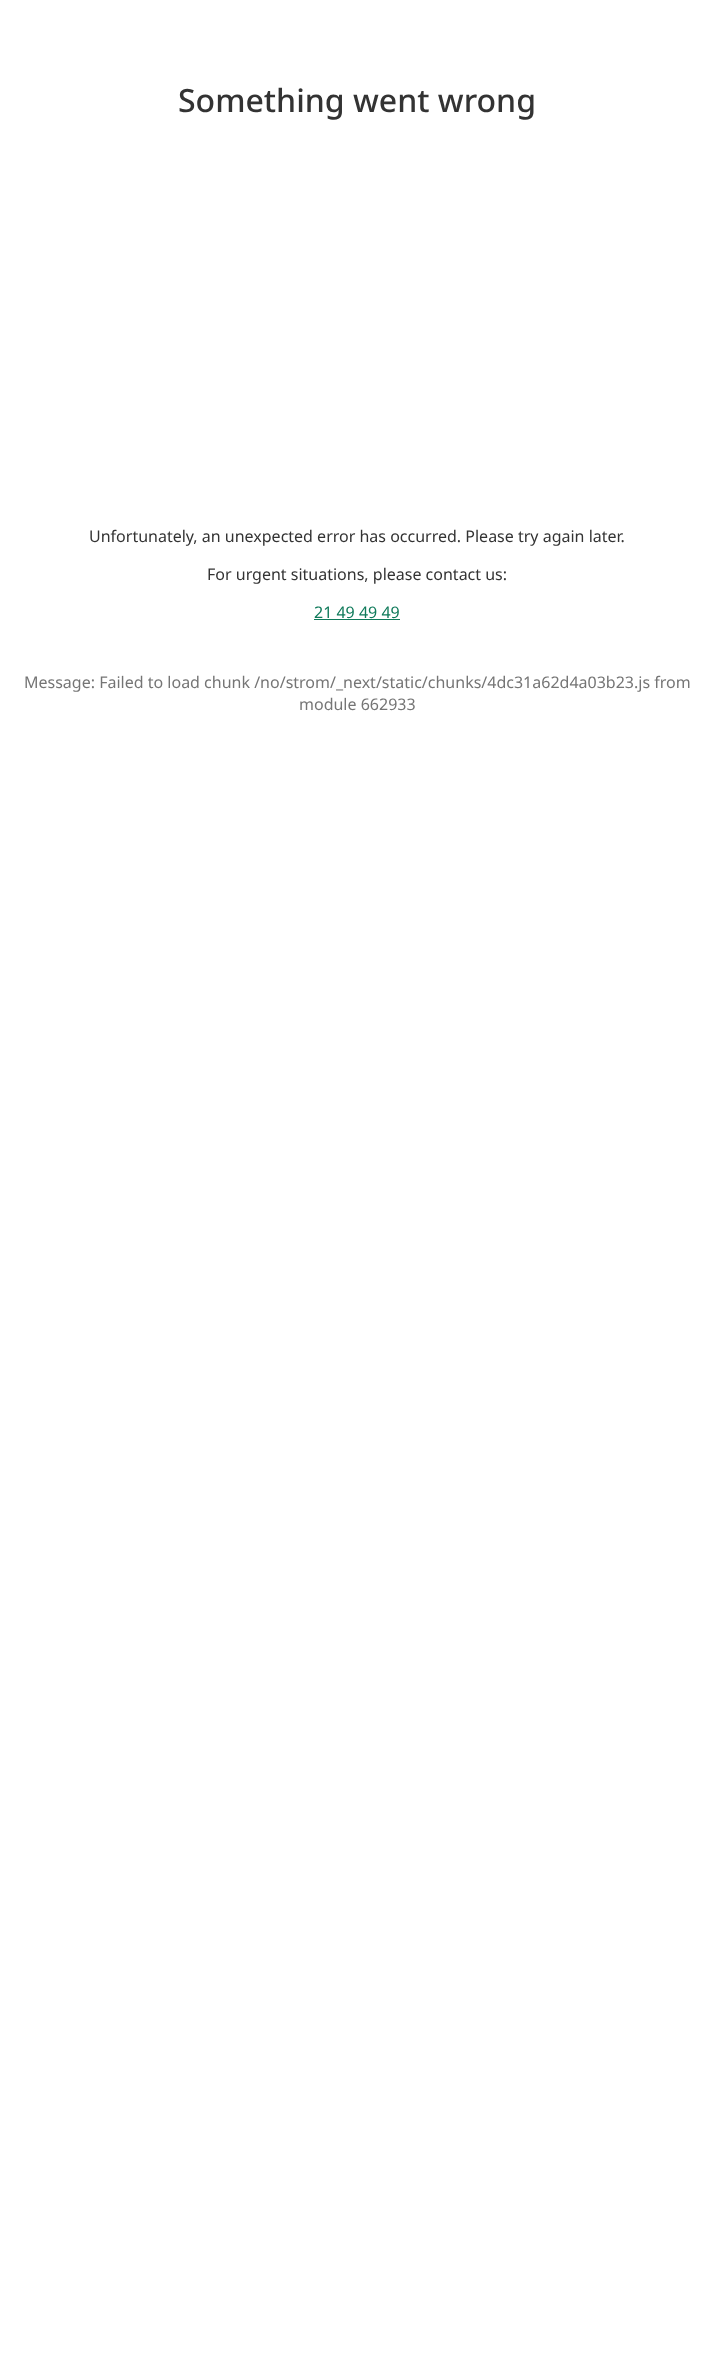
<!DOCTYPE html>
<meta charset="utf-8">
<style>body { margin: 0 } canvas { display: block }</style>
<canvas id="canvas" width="714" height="2380"></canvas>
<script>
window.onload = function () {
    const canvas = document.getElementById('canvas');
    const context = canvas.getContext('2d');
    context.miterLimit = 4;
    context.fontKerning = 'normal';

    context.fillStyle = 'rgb(255, 255, 255)';
    context.fillRect(0, 0, 714, 2380);
    context.fillStyle = 'rgb(15, 122, 90)';
    context.fillRect(314, 619, 86, 1);
    context.font = '500 32px Noto Sans';
    context.fillStyle = 'rgb(51, 51, 51)';
    context.fillText('Something went wrong', 178, 112);
    context.font = '16px Noto Sans';
    context.fillText('Unfortunately, an unexpected error has occurred. Please try again later.', 89, 542);
    context.fillText('For urgent situations, please contact us:', 207, 580);
    context.fillStyle = 'rgb(15, 122, 90)';
    context.fillText('21 49 49 49', 314, 618);
    context.fillStyle = 'rgb(117, 117, 117)';
    context.fillText('Message: Failed to load chunk /no/strom/_next/static/chunks/4dc31a62d4a03b23.js from', 24, 688);
    context.fillText('module 662933', 299, 710);
};
</script>
